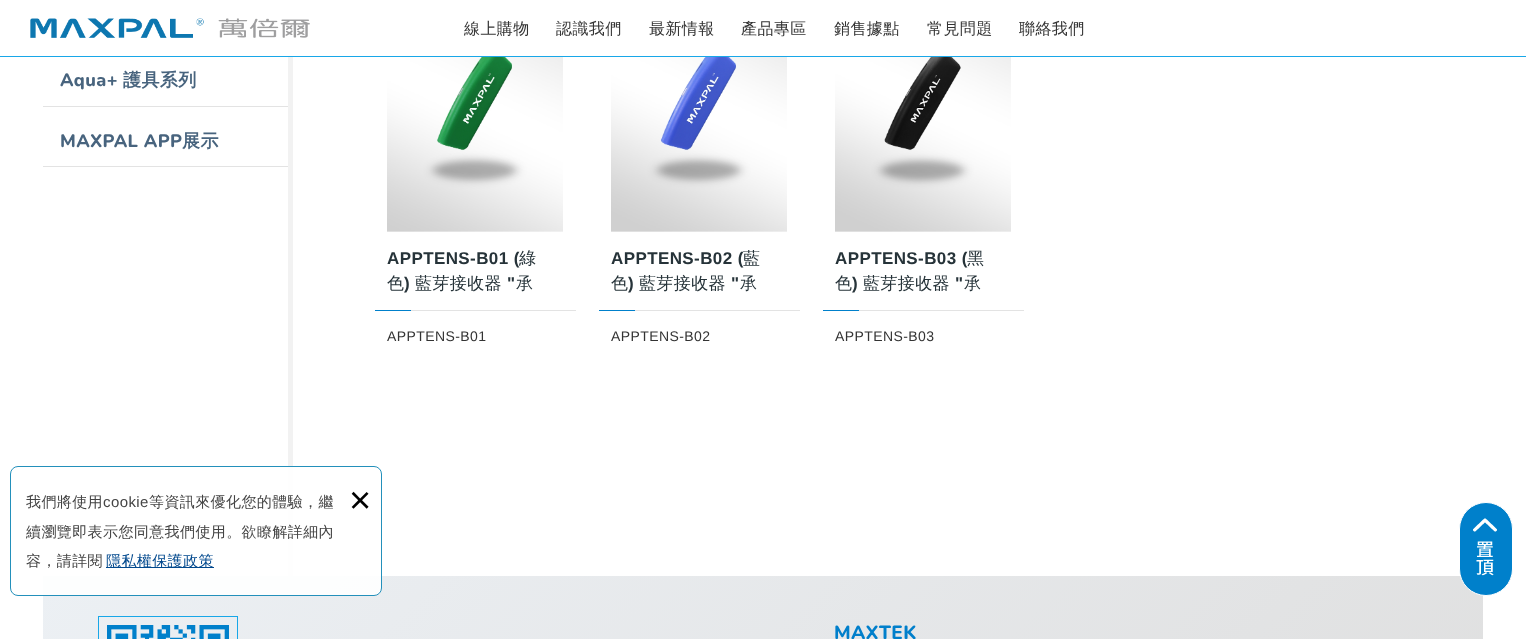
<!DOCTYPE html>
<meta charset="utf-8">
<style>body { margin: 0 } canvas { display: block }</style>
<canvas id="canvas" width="1526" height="639"></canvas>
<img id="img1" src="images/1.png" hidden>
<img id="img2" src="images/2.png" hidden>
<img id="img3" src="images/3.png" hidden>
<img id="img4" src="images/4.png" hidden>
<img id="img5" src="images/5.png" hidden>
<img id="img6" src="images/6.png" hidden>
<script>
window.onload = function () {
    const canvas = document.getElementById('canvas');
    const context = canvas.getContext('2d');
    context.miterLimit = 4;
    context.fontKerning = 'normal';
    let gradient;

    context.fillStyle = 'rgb(255, 255, 255)';
    context.fillRect(0, 0, 1526, 639);
    context.fillStyle = 'rgb(24, 167, 232)';
    context.fillRect(0, 56, 1526, 1);
    context.drawImage(document.getElementById('img1'), 30, 18, 280, 20);
    context.fillStyle = 'rgb(242, 242, 242)';
    context.fillRect(288, 57, 5, 519);
    gradient = context.createLinearGradient(348, 271, 1178, 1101);
    gradient.addColorStop(0, 'rgb(236, 240, 244)');
    gradient.addColorStop(1, 'rgb(223, 223, 223)');
    context.fillStyle = gradient;
    context.fillRect(43, 576, 1440, 63);
    context.fillStyle = 'rgba(255, 255, 255, 0.9)';
    context.beginPath();
    context.roundRect(10.5, 466.5, 371, 129, 7.5);
    context.fill();
    context.strokeStyle = 'rgb(35, 144, 187)';
    context.stroke();
    context.fillStyle = 'rgb(1, 72, 141)';
    context.fillRect(106, 567, 108, 1);
    context.fillStyle = 'rgb(227, 227, 227)';
    context.fillRect(43, 106, 245, 1);
    context.fillRect(43, 166, 245, 1);
    context.drawImage(document.getElementById('img2'), 387, 57, 176, 175);
    context.fillRect(411, 310, 165, 1);
    context.fillStyle = 'rgb(0, 128, 203)';
    context.fillRect(375, 310, 36, 1);
    context.drawImage(document.getElementById('img3'), 611, 57, 176, 175);
    context.fillStyle = 'rgb(227, 227, 227)';
    context.fillRect(635, 310, 165, 1);
    context.fillStyle = 'rgb(0, 128, 203)';
    context.fillRect(599, 310, 36, 1);
    context.drawImage(document.getElementById('img4'), 835, 57, 176, 175);
    context.fillStyle = 'rgb(227, 227, 227)';
    context.fillRect(859, 310, 165, 1);
    context.fillStyle = 'rgb(0, 128, 203)';
    context.fillRect(823, 310, 36, 1);
    context.drawImage(document.getElementById('img5'), 98, 616, 140, 23);
    context.beginPath();
    context.roundRect(1459.5, 502.5, 53, 93, 26.5);
    context.fill();
    context.strokeStyle = 'rgb(255, 255, 255)';
    context.stroke();
    context.drawImage(document.getElementById('img6'), 1473, 518, 24, 58);
    context.letterSpacing = '0.4px';
    context.font = '500 16px WenQuanYi Zen Hei';
    context.fillStyle = 'rgb(51, 51, 51)';
    context.fillText('線上購物', 464, 34);
    context.fillText('認識我們', 556, 34);
    context.fillText('最新情報', 649, 34);
    context.fillText('產品專區', 741, 34);
    context.fillText('銷售據點', 834, 34);
    context.fillText('常見問題', 927, 34);
    context.fillText('聯絡我們', 1019, 34);
    context.font = '500 15px WenQuanYi Zen Hei';
    context.fillStyle = 'rgb(68, 68, 68)';
    context.fillText('我們將使用', 26, 507);
    context.font = '15px Liberation Sans';
    context.fillText('cookie', 103, 507);
    context.font = '500 15px WenQuanYi Zen Hei';
    context.fillText('等資訊來優化您的體驗，繼', 149, 507);
    context.fillText('續瀏覽即表示您同意我們使用。欲瞭解詳細內', 26, 537);
    context.fillText('容，請詳閱', 26, 566);
    context.fillStyle = 'rgb(1, 72, 141)';
    context.fillText('隱私權保護政策', 106, 566);
    context.letterSpacing = '0px';
    context.font = '38px Liberation Sans';
    context.fillStyle = 'rgb(0, 0, 0)';
    context.fillText('×', 349, 513);
    context.letterSpacing = '0.4px';
    context.font = '800 18px Nunito';
    context.fillStyle = 'rgb(72, 100, 126)';
    context.fillText('Aqua+', 60, 86);
    context.font = 'bold 18px WenQuanYi Zen Hei';
    context.fillText('護具系列', 123, 86);
    context.font = '800 18px Nunito';
    context.fillText('MAXPAL APP', 60, 147);
    context.font = 'bold 18px WenQuanYi Zen Hei';
    context.fillText('展示', 182, 147);
    context.font = 'bold 17px Liberation Sans';
    context.fillStyle = 'rgb(38, 51, 57)';
    context.fillText('APPTENS-B01 (', 387, 264);
    context.font = '500 17px WenQuanYi Zen Hei';
    context.fillText('綠', 519, 264);
    context.fillText('色', 387, 289);
    context.font = 'bold 17px Liberation Sans';
    context.fillText(')', 404, 289);
    context.font = '500 17px WenQuanYi Zen Hei';
    context.fillText('藍芽接收器', 415, 289);
    context.font = 'bold 17px Liberation Sans';
    context.fillText('"', 507, 289);
    context.font = '500 17px WenQuanYi Zen Hei';
    context.fillText('承', 516, 289);
    context.font = '14px Liberation Sans';
    context.fillStyle = 'rgb(51, 51, 51)';
    context.fillText('APPTENS-B01', 387, 341);
    context.font = 'bold 17px Liberation Sans';
    context.fillStyle = 'rgb(38, 51, 57)';
    context.fillText('APPTENS-B02 (', 611, 264);
    context.font = '500 17px WenQuanYi Zen Hei';
    context.fillText('藍', 743, 264);
    context.fillText('色', 611, 289);
    context.font = 'bold 17px Liberation Sans';
    context.fillText(')', 628, 289);
    context.font = '500 17px WenQuanYi Zen Hei';
    context.fillText('藍芽接收器', 639, 289);
    context.font = 'bold 17px Liberation Sans';
    context.fillText('"', 731, 289);
    context.font = '500 17px WenQuanYi Zen Hei';
    context.fillText('承', 740, 289);
    context.font = '14px Liberation Sans';
    context.fillStyle = 'rgb(51, 51, 51)';
    context.fillText('APPTENS-B02', 611, 341);
    context.font = 'bold 17px Liberation Sans';
    context.fillStyle = 'rgb(38, 51, 57)';
    context.fillText('APPTENS-B03 (', 835, 264);
    context.font = '500 17px WenQuanYi Zen Hei';
    context.fillText('黑', 967, 264);
    context.fillText('色', 835, 289);
    context.font = 'bold 17px Liberation Sans';
    context.fillText(')', 852, 289);
    context.font = '500 17px WenQuanYi Zen Hei';
    context.fillText('藍芽接收器', 863, 289);
    context.font = 'bold 17px Liberation Sans';
    context.fillText('"', 955, 289);
    context.font = '500 17px WenQuanYi Zen Hei';
    context.fillText('承', 964, 289);
    context.font = '14px Liberation Sans';
    context.fillStyle = 'rgb(51, 51, 51)';
    context.fillText('APPTENS-B03', 835, 341);
    context.font = '800 19px Nunito';
    context.fillStyle = 'rgb(0, 127, 203)';
    context.fillText('MAXTEK', 834, 639);
};
</script>
